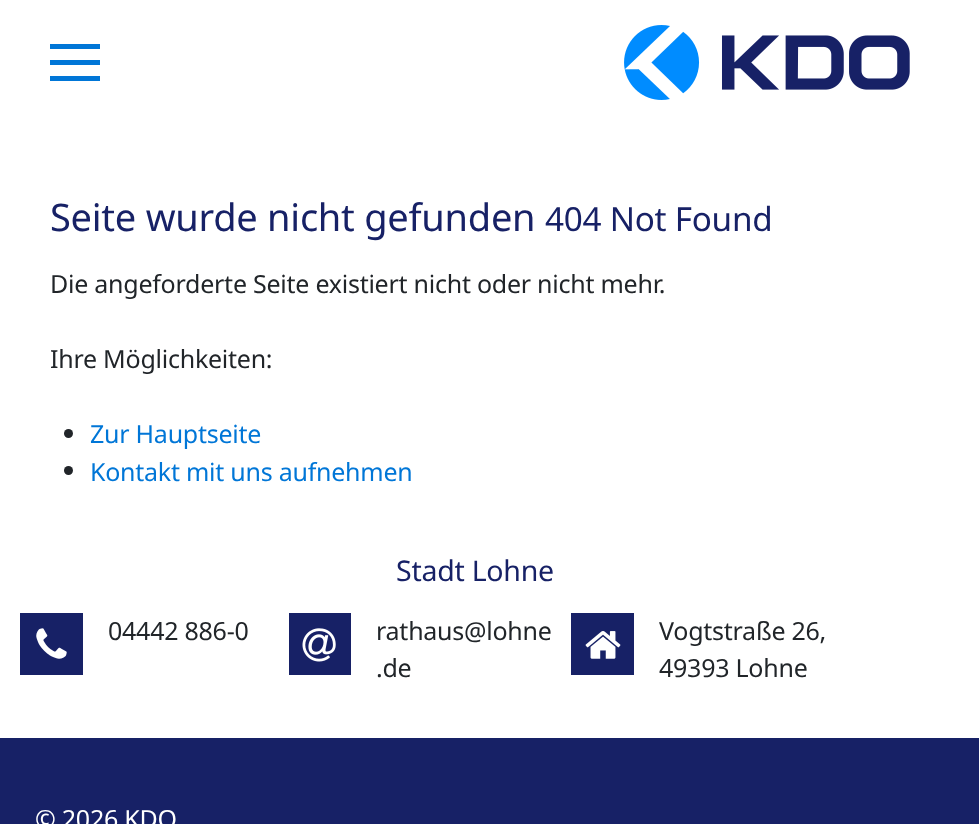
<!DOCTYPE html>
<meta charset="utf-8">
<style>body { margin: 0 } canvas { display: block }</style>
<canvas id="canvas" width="979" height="824"></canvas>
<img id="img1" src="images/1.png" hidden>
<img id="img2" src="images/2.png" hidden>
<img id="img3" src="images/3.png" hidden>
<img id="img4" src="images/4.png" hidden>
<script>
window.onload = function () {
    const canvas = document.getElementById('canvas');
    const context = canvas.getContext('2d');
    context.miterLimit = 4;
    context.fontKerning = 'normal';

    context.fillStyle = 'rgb(255, 255, 255)';
    context.fillRect(0, 0, 979, 824);
    context.fillStyle = 'rgb(0, 118, 215)';
    context.fillRect(50, 44, 50, 5);
    context.fillRect(50, 60, 50, 5);
    context.fillRect(50, 76, 50, 5);
    context.drawImage(document.getElementById('img1'), 624, 25, 286, 75);
    context.fillStyle = 'rgb(33, 37, 41)';
    context.beginPath();
    context.arc(68.5, 433.5, 4.5, 0, 2 * Math.PI);
    context.fill();
    context.beginPath();
    context.arc(68.5, 470.5, 4.5, 0, 2 * Math.PI);
    context.fill();
    context.fillStyle = 'rgb(23, 33, 102)';
    context.fillRect(20, 613, 63, 62);
    context.drawImage(document.getElementById('img2'), 36, 628, 31, 31);
    context.fillRect(289, 613, 62, 62);
    context.drawImage(document.getElementById('img3'), 302, 628, 34, 34);
    context.fillRect(571, 613, 63, 62);
    context.drawImage(document.getElementById('img4'), 585, 631, 36, 28);
    context.fillRect(0, 738, 979, 86);
    context.letterSpacing = '-0.25px';
    context.font = '38px Noto Sans';
    context.fillText('Seite wurde nicht gefunden', 50, 231);
    context.font = '33.25px Noto Sans';
    context.fillText('404 Not Found', 545, 231);
    context.font = '25px Noto Sans';
    context.fillStyle = 'rgb(33, 37, 41)';
    context.fillText('Die angeforderte Seite existiert nicht oder nicht mehr.', 50, 293);
    context.fillText('Ihre Möglichkeiten:', 50, 368);
    context.fillStyle = 'rgb(0, 118, 215)';
    context.fillText('Zur Hauptseite', 90, 443);
    context.fillText('Kontakt mit uns aufnehmen', 90, 481);
    context.font = '28.5px Noto Sans';
    context.fillStyle = 'rgb(23, 33, 102)';
    context.fillText('Stadt Lohne', 396, 581);
    context.font = '25px Noto Sans';
    context.fillStyle = 'rgb(33, 37, 41)';
    context.fillText('04442 886-0', 108, 640);
    context.fillText('rathaus@lohne', 376, 640);
    context.fillText('.de', 376, 677);
    context.fillText('Vogtstraße 26,', 659, 640);
    context.fillText('49393 Lohne', 659, 677);
    context.fillStyle = 'rgb(255, 255, 255)';
    context.fillText('© 2026 KDO', 35, 828);
};
</script>
